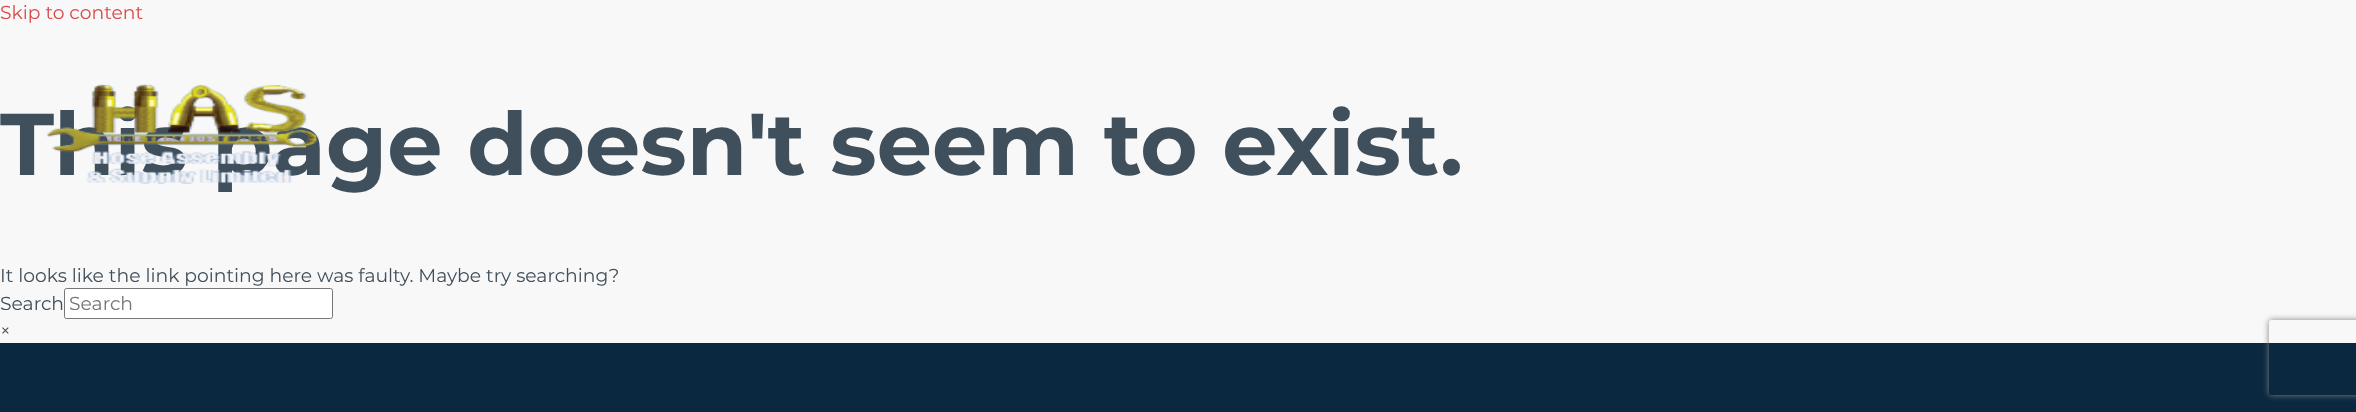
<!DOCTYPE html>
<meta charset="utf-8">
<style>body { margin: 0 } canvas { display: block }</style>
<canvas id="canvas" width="2356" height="412"></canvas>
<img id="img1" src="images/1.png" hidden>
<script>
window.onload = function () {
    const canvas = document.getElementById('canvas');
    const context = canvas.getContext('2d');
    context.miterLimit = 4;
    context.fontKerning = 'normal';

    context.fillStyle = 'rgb(249, 248, 248)';
    context.fillRect(0, 0, 2356, 412);
    context.fillStyle = 'rgb(255, 255, 255)';
    context.beginPath();
    context.roundRect(64.5, 288.5, 268, 30, 2);
    context.fill();
    context.strokeStyle = 'rgb(118, 118, 118)';
    context.stroke();
    context.fillStyle = 'rgb(10, 41, 65)';
    context.fillRect(0, 343, 2356, 69);
    context.save();
    context.beginPath();
    context.moveTo(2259, 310);
    context.lineTo(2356, 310);
    context.lineTo(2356, 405);
    context.lineTo(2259, 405);
    context.closePath();
    context.moveTo(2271.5, 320);
    context.lineTo(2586.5, 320);
    context.bezierCurveTo(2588, 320, 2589, 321, 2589, 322.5);
    context.lineTo(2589, 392.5);
    context.bezierCurveTo(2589, 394, 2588, 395, 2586.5, 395);
    context.lineTo(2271.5, 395);
    context.bezierCurveTo(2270, 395, 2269, 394, 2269, 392.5);
    context.lineTo(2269, 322.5);
    context.bezierCurveTo(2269, 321, 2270, 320, 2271.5, 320);
    context.closePath();
    context.clip('evenodd');
    context.fillStyle = 'rgb(128, 128, 128)';
    context.filter = 'blur(3px)';
    context.beginPath();
    context.roundRect(2269, 320, 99, 75, 2.5);
    context.fill();
    context.filter = 'none';
    context.restore();
    context.font = '18.75px Montserrat';
    context.fillStyle = 'rgb(217, 73, 72)';
    context.fillText('Skip to content', 0, 19);
    context.font = 'bold 87.5px Montserrat';
    context.fillStyle = 'rgb(63, 79, 91)';
    context.fillText('This page doesn\'t seem to exist.', 0, 175);
    context.drawImage(document.getElementById('img1'), 46, 84, 273, 100);
    context.font = '18.75px Montserrat';
    context.fillText('It looks like the link pointing here was faulty. Maybe try searching?', 0, 282);
    context.fillText('Search', 0, 310);
    context.fillStyle = 'rgb(117, 117, 117)';
    context.fillText('Search', 69, 310);
    context.fillStyle = 'rgb(63, 79, 91)';
    context.fillText('×', 0, 337);
};
</script>
